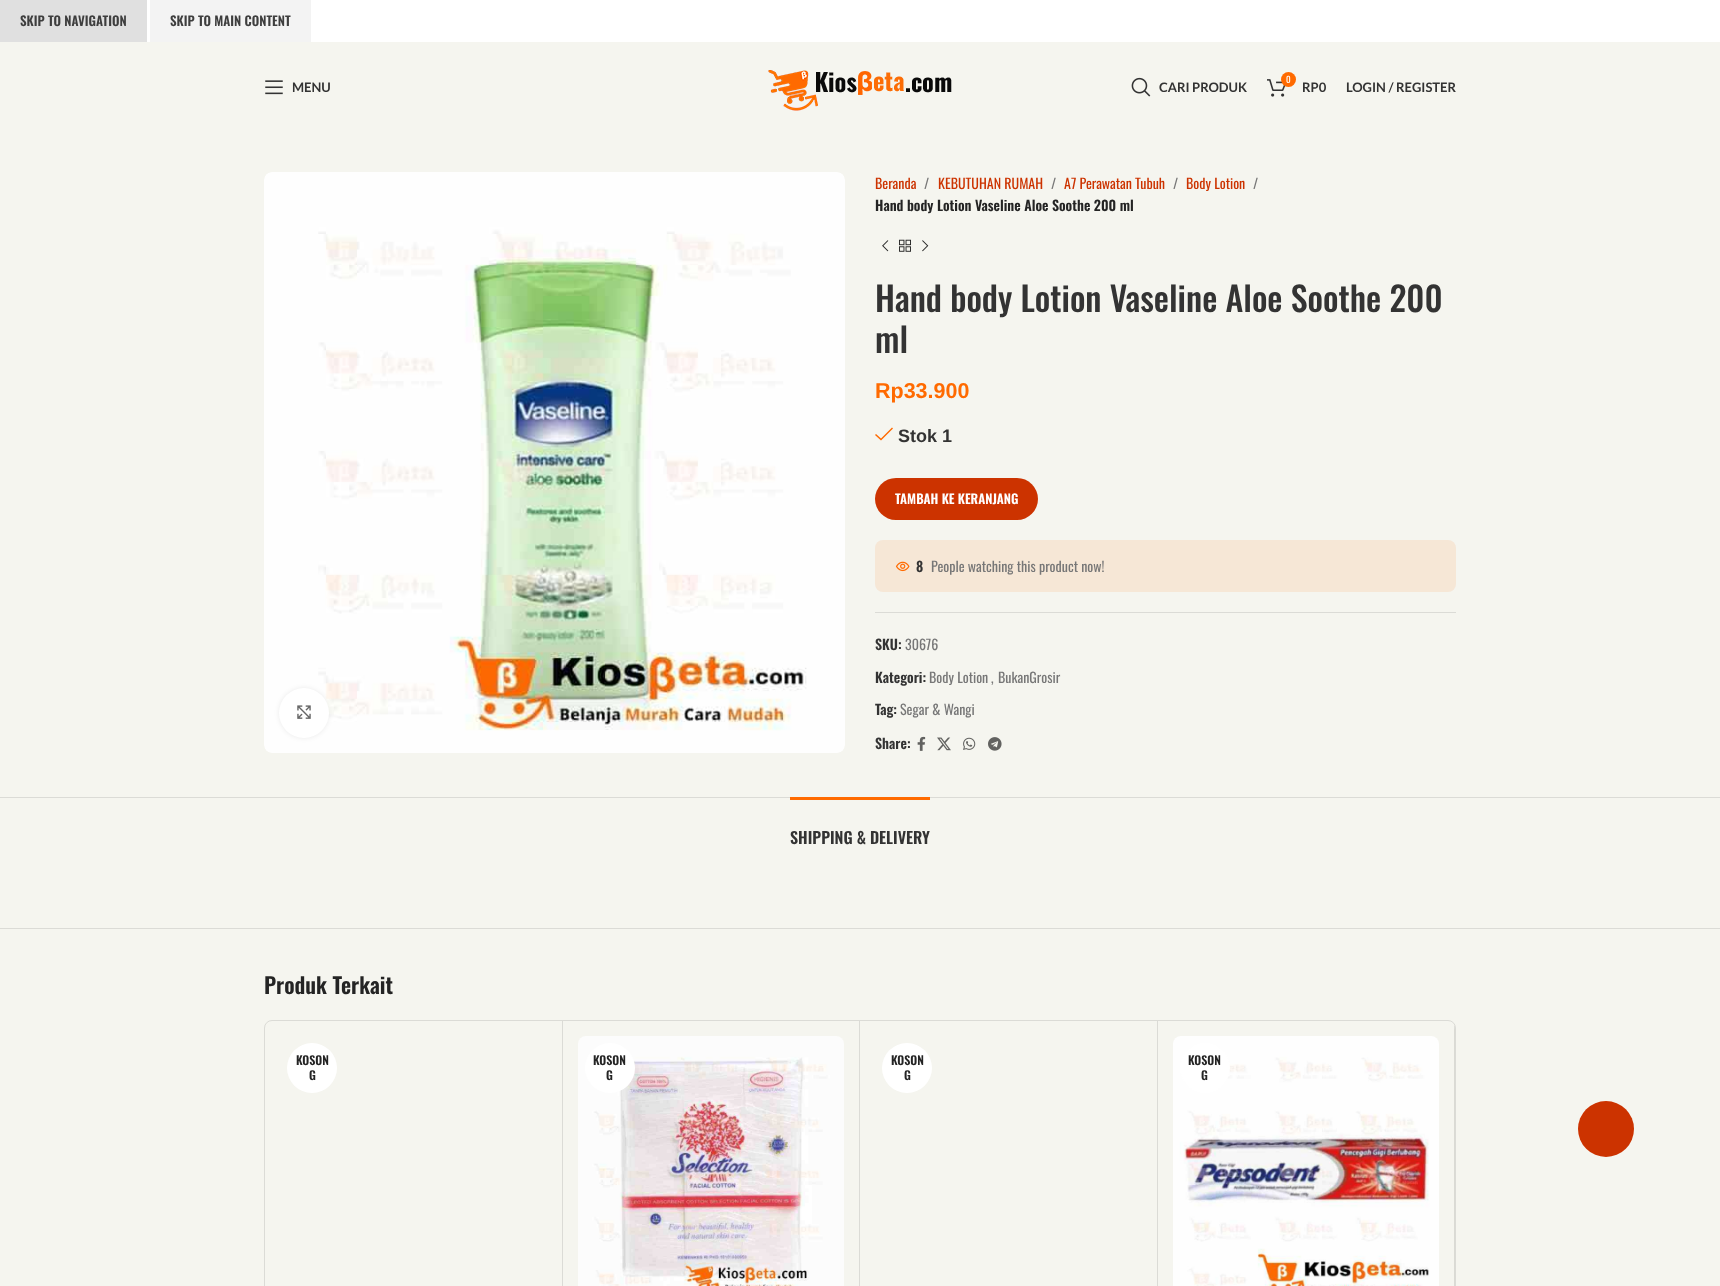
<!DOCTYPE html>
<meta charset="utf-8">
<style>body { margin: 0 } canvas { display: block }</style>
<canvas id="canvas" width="1720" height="1286"></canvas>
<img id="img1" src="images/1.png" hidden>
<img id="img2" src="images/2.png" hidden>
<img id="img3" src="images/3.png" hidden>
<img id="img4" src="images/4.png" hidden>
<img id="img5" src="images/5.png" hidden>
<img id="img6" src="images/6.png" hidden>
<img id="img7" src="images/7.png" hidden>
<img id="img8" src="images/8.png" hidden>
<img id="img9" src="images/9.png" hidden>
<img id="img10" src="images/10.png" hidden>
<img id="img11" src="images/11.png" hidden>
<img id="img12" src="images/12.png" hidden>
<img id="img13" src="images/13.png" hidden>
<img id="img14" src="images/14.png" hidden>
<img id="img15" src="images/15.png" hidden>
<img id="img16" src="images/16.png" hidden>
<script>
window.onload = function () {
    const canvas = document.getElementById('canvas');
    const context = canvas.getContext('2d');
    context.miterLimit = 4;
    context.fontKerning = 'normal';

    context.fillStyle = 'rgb(255, 255, 255)';
    context.fillRect(0, 0, 1720, 1286);
    context.fillStyle = 'rgb(224, 224, 224)';
    context.fillRect(0, 0, 147, 42);
    context.fillStyle = 'rgb(243, 243, 243)';
    context.fillRect(150, 0, 161, 42);
    context.fillStyle = 'rgb(245, 245, 239)';
    context.fillRect(0, 42, 1720, 1244);
    context.drawImage(document.getElementById('img1'), 265, 80, 18, 15);
    context.drawImage(document.getElementById('img2'), 768, 70, 184, 41);
    context.drawImage(document.getElementById('img3'), 1131, 77, 20, 20);
    context.drawImage(document.getElementById('img4'), 1267, 79, 19, 18);
    context.fillStyle = 'rgb(255, 106, 0)';
    context.beginPath();
    context.arc(1288.5, 79.5, 7.5, 0, 2 * Math.PI);
    context.fill();
    context.drawImage(document.getElementById('img5'), 264, 172, 581, 581);
    context.fillStyle = 'rgba(0, 0, 0, 0.08)';
    context.filter = 'blur(2.5px)';
    context.beginPath();
    context.roundRect(279, 688, 50, 50, 25);
    context.fill();
    context.filter = 'none';
    context.fillStyle = 'rgb(255, 255, 255)';
    context.beginPath();
    context.arc(304, 713, 25, 0, 2 * Math.PI);
    context.fill();
    context.drawImage(document.getElementById('img6'), 297, 705, 14, 14);
    context.drawImage(document.getElementById('img7'), 882, 240, 7, 12);
    context.drawImage(document.getElementById('img8'), 899, 239, 12, 13);
    context.drawImage(document.getElementById('img9'), 922, 240, 7, 12);
    context.fillStyle = 'rgb(255, 106, 0)';
    context.beginPath();
    context.moveTo(893, 428.5);
    context.lineTo(892, 427.5);
    context.lineTo(881, 438.5);
    context.lineTo(876, 434);
    context.lineTo(875, 435);
    context.lineTo(881, 440.5);
    context.closePath();
    context.fill();
    context.fillStyle = 'rgb(204, 51, 0)';
    context.beginPath();
    context.roundRect(875, 478, 163, 42, 21);
    context.fill();
    context.drawImage(document.getElementById('img10'), 895, 561, 15, 11);
    context.fillStyle = 'rgba(255, 106, 0, 0.1)';
    context.beginPath();
    context.roundRect(875, 540, 581, 52, 8);
    context.fill();
    context.fillStyle = 'rgb(219, 219, 214)';
    context.fillRect(875, 612, 581, 1);
    context.drawImage(document.getElementById('img11'), 917, 736, 9, 15);
    context.drawImage(document.getElementById('img12'), 937, 737, 14, 14);
    context.drawImage(document.getElementById('img13'), 963, 737, 13, 13);
    context.drawImage(document.getElementById('img14'), 988, 737, 14, 14);
    context.fillRect(0, 797, 1720, 1);
    context.fillRect(0, 928, 1720, 1);
    context.fillStyle = 'rgb(255, 106, 0)';
    context.fillRect(790, 797, 140, 3);
    context.beginPath();
    context.roundRect(264.5, 1020.5, 1191, 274, 7.5);
    context.strokeStyle = 'rgb(219, 219, 214)';
    context.stroke();
    context.fillStyle = 'rgb(219, 219, 214)';
    context.fillRect(562, 1021, 1, 265);
    context.fillStyle = 'rgb(255, 255, 255)';
    context.beginPath();
    context.arc(312, 1068, 25, 0, 2 * Math.PI);
    context.fill();
    context.fillStyle = 'rgb(219, 219, 214)';
    context.fillRect(859, 1021, 1, 265);
    context.drawImage(document.getElementById('img15'), 578, 1036, 266, 250);
    context.fillStyle = 'rgb(255, 255, 255)';
    context.beginPath();
    context.arc(610, 1068, 25, 0, 2 * Math.PI);
    context.fill();
    context.fillStyle = 'rgb(219, 219, 214)';
    context.fillRect(1157, 1021, 1, 265);
    context.fillStyle = 'rgb(255, 255, 255)';
    context.beginPath();
    context.arc(907, 1068, 25, 0, 2 * Math.PI);
    context.fill();
    context.save();
    context.beginPath();
    context.roundRect(265, 1021, 1190, 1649, 8);
    context.clip();
    context.fillStyle = 'rgba(0, 0, 0, 0.11)';
    context.fillRect(1454, 1021, 1, 265);
    context.restore();
    context.drawImage(document.getElementById('img16'), 1173, 1036, 266, 250);
    context.beginPath();
    context.arc(1205, 1068, 25, 0, 2 * Math.PI);
    context.fill();
    context.fillStyle = 'rgb(204, 51, 0)';
    context.beginPath();
    context.arc(1606, 1129, 28, 0, 2 * Math.PI);
    context.fill();
    context.font = '600 13px Oswald';
    context.fillStyle = 'rgb(62, 62, 62)';
    context.fillText('SKIP TO NAVIGATION', 20, 26);
    context.fillText('SKIP TO MAIN CONTENT', 170, 26);
    context.font = 'bold 13px Lato';
    context.fillStyle = 'rgb(51, 51, 51)';
    context.fillText('MENU', 292, 92);
    context.fillText('CARI PRODUK', 1159, 92);
    context.font = '9px Oswald';
    context.fillStyle = 'rgb(255, 255, 255)';
    context.fillText('0', 1286, 83);
    context.font = 'bold 13px Lato';
    context.fillStyle = 'rgb(51, 51, 51)';
    context.fillText('RP0', 1302, 92);
    context.fillText('LOGIN / REGISTER', 1346, 92);
    context.font = '14px Oswald';
    context.fillStyle = 'rgb(204, 51, 0)';
    context.fillText('Beranda', 875, 189);
    context.fillStyle = 'rgb(119, 119, 119)';
    context.fillText('/', 924, 189);
    context.fillStyle = 'rgb(204, 51, 0)';
    context.fillText('KEBUTUHAN RUMAH', 938, 189);
    context.fillStyle = 'rgb(119, 119, 119)';
    context.fillText('/', 1051, 189);
    context.fillStyle = 'rgb(204, 51, 0)';
    context.fillText('A7 Perawatan Tubuh', 1064, 189);
    context.fillStyle = 'rgb(119, 119, 119)';
    context.fillText('/', 1173, 189);
    context.fillStyle = 'rgb(204, 51, 0)';
    context.fillText('Body Lotion', 1186, 189);
    context.fillStyle = 'rgb(119, 119, 119)';
    context.fillText('/', 1253, 189);
    context.font = '600 14px Oswald';
    context.fillStyle = 'rgb(36, 36, 36)';
    context.fillText('Hand body Lotion Vaseline Aloe Soothe 200 ml', 875, 211);
    context.font = '500 34px Oswald';
    context.fillStyle = 'rgb(51, 51, 51)';
    context.fillText('Hand body Lotion Vaseline Aloe Soothe 200', 875, 312);
    context.fillText('ml', 875, 353);
    context.font = 'bold 21.5px Liberation Sans';
    context.fillStyle = 'rgb(255, 106, 0)';
    context.fillText('Rp33.900', 875, 398);
    context.font = 'bold 18px Liberation Sans';
    context.fillStyle = 'rgb(51, 51, 51)';
    context.fillText('Stok 1', 898, 442);
    context.font = '600 13px Oswald';
    context.fillStyle = 'rgb(255, 255, 255)';
    context.fillText('TAMBAH KE KERANJANG', 895, 504);
    context.font = '600 14px Oswald';
    context.fillStyle = 'rgb(51, 51, 51)';
    context.fillText('8', 916, 572);
    context.font = '14px Oswald';
    context.fillStyle = 'rgb(119, 119, 119)';
    context.fillText('People watching this product now!', 931, 572);
    context.font = '600 14px Oswald';
    context.fillStyle = 'rgb(51, 51, 51)';
    context.fillText('SKU:', 875, 650);
    context.font = '14px Oswald';
    context.fillStyle = 'rgb(119, 119, 119)';
    context.fillText('30676', 905, 650);
    context.font = '600 14px Oswald';
    context.fillStyle = 'rgb(51, 51, 51)';
    context.fillText('Kategori:', 875, 683);
    context.font = '14px Oswald';
    context.fillStyle = 'rgb(119, 119, 119)';
    context.fillText('Body Lotion', 929, 683);
    context.fillText(',', 991, 683);
    context.fillText('BukanGrosir', 998, 683);
    context.font = '600 14px Oswald';
    context.fillStyle = 'rgb(51, 51, 51)';
    context.fillText('Tag:', 875, 715);
    context.font = '14px Oswald';
    context.fillStyle = 'rgb(119, 119, 119)';
    context.fillText('Segar & Wangi', 900, 715);
    context.font = '600 14px Oswald';
    context.fillStyle = 'rgb(51, 51, 51)';
    context.fillText('Share:', 875, 749);
    context.font = '600 16px Oswald';
    context.fillText('SHIPPING & DELIVERY', 790, 844);
    context.font = '600 22px Oswald';
    context.fillStyle = 'rgb(36, 36, 36)';
    context.fillText('Produk Terkait', 264, 994);
    context.font = '600 12px Oswald';
    context.fillText('KOSON', 296, 1065);
    context.fillText('G', 309, 1080);
    context.fillText('KOSON', 593, 1065);
    context.fillText('G', 606, 1080);
    context.fillText('KOSON', 891, 1065);
    context.fillText('G', 904, 1080);
    context.fillText('KOSON', 1188, 1065);
    context.fillText('G', 1201, 1080);
};
</script>
